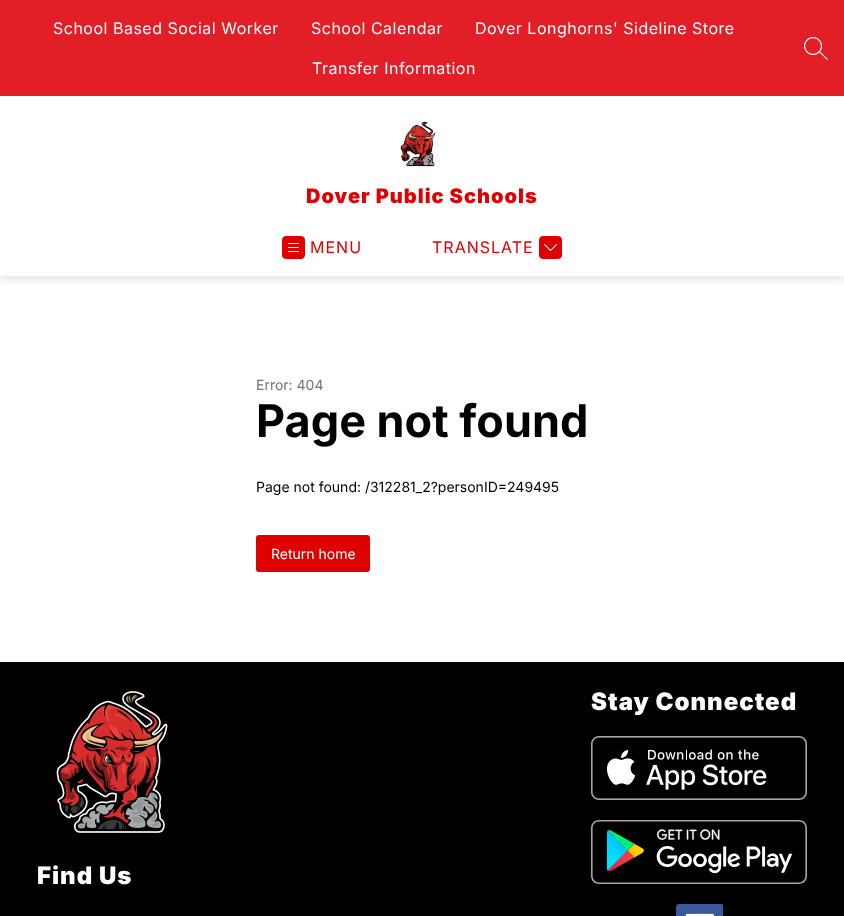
<!DOCTYPE html>
<meta charset="utf-8">
<style>body { margin: 0 } canvas { display: block }</style>
<canvas id="canvas" width="844" height="916"></canvas>
<img id="img1" src="images/1.png" hidden>
<img id="img2" src="images/2.png" hidden>
<img id="img3" src="images/3.png" hidden>
<img id="img4" src="images/4.png" hidden>
<img id="img5" src="images/5.png" hidden>
<img id="img6" src="images/6.png" hidden>
<img id="img7" src="images/7.png" hidden>
<img id="img8" src="images/8.png" hidden>
<script>
window.onload = function () {
    const canvas = document.getElementById('canvas');
    const context = canvas.getContext('2d');
    context.miterLimit = 4;
    context.fontKerning = 'normal';

    context.fillStyle = 'rgb(255, 255, 255)';
    context.fillRect(0, 0, 844, 916);
    context.save();
    context.beginPath();
    context.rect(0, 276, 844, 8);
    context.clip();
    context.fillStyle = 'rgba(0, 0, 0, 0.1)';
    context.filter = 'blur(5px)';
    context.beginPath();
    context.rect(0, 4, 844, 276);
    context.fill();
    context.filter = 'none';
    context.restore();
    context.fillStyle = 'rgb(226, 30, 38)';
    context.fillRect(0, 0, 844, 96);
    context.drawImage(document.getElementById('img1'), 804, 37, 24, 23);
    context.drawImage(document.getElementById('img2'), 400, 121, 36, 46);
    context.drawImage(document.getElementById('img3'), 282, 236, 23, 23);
    context.drawImage(document.getElementById('img4'), 539, 236, 23, 23);
    context.fillStyle = 'rgb(223, 1, 1)';
    context.beginPath();
    context.roundRect(256, 535, 114, 37, 3);
    context.fill();
    context.fillStyle = 'rgb(0, 0, 0)';
    context.fillRect(0, 662, 844, 254);
    context.drawImage(document.getElementById('img5'), 591, 736, 216, 64);
    context.drawImage(document.getElementById('img6'), 591, 820, 216, 64);
    context.drawImage(document.getElementById('img7'), 676, 904, 47, 12);
    context.drawImage(document.getElementById('img8'), 56, 691, 112, 142);
    context.letterSpacing = '0.5px';
    context.font = '16px Inter';
    context.fillStyle = 'rgb(255, 255, 255)';
    context.fillText('School Based Social Worker', 53, 34);
    context.fillText('School Calendar', 311, 34);
    context.fillText('Dover Longhorns\' Sideline Store', 475, 34);
    context.fillText('Transfer Information', 312, 74);
    context.letterSpacing = '1px';
    context.font = '900 20px Inter';
    context.fillStyle = 'rgb(223, 1, 1)';
    context.fillText('Dover Public Schools', 306, 203);
    context.font = '16px Inter';
    context.fillText('MENU', 310, 253);
    context.fillText('TRANSLATE', 432, 253);
    context.letterSpacing = '0px';
    context.font = '14px Inter';
    context.fillStyle = 'rgb(116, 116, 116)';
    context.fillText('Error: 404', 256, 390);
    context.font = 'bold 45px Inter';
    context.fillStyle = 'rgb(0, 0, 0)';
    context.fillText('Page not found', 256, 437);
    context.font = '14px Inter';
    context.fillText('Page not found: /312281_2?personID=249495', 256, 492);
    context.fillStyle = 'rgb(255, 255, 255)';
    context.fillText('Return home', 271, 559);
    context.letterSpacing = '1px';
    context.font = '900 24px Inter';
    context.fillText('Stay Connected', 591, 710);
    context.fillText('Find Us', 37, 884);
};
</script>
